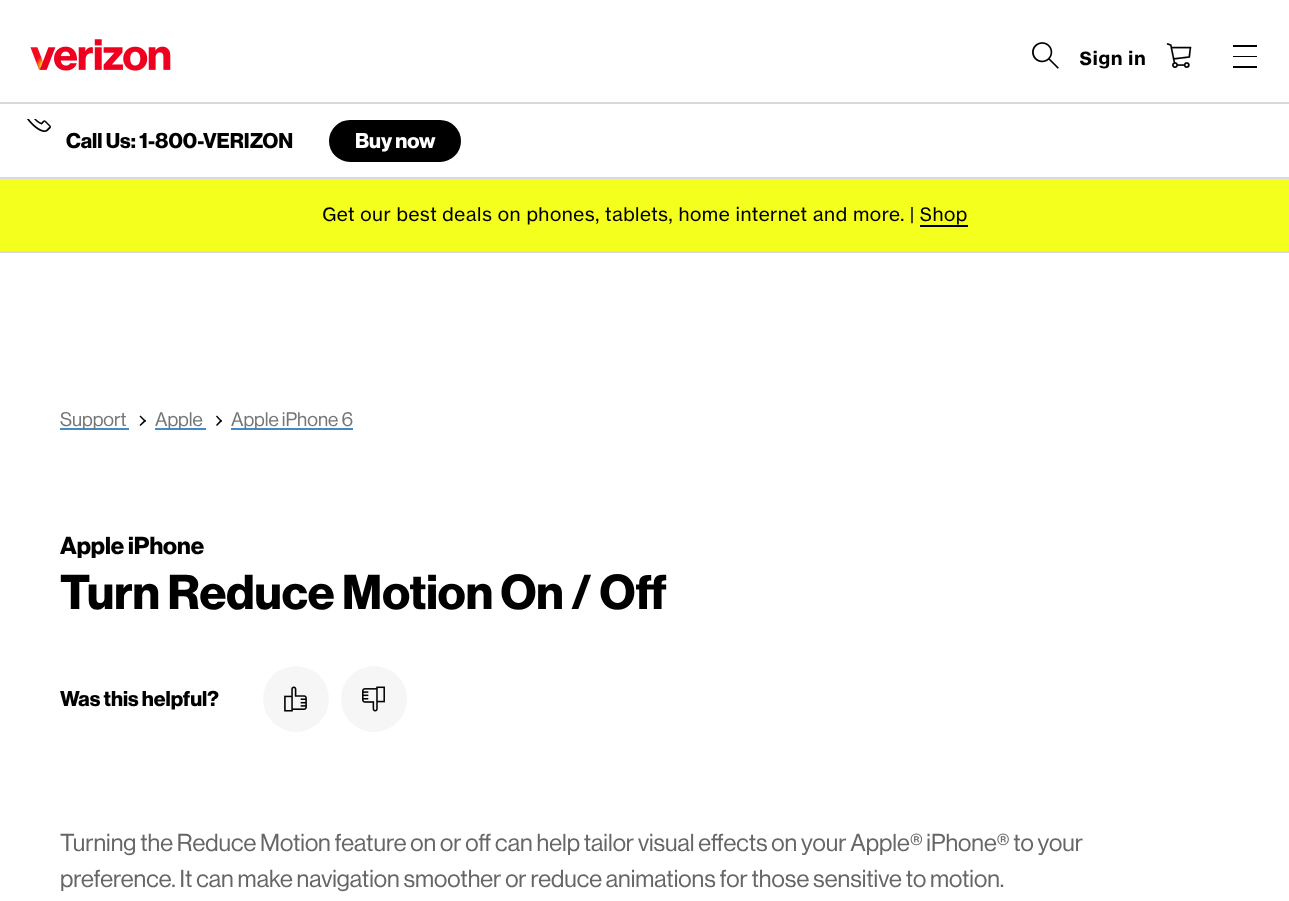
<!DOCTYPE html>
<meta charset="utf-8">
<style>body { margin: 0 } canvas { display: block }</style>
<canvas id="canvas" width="1289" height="901"></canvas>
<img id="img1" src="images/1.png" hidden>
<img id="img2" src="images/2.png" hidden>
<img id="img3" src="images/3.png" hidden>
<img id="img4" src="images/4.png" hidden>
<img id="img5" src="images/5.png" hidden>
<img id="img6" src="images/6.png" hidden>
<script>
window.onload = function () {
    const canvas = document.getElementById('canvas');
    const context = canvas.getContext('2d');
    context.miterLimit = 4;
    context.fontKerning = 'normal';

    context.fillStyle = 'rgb(255, 255, 255)';
    context.fillRect(0, 0, 1289, 901);
    context.fillStyle = 'rgb(216, 218, 218)';
    context.fillRect(0, 251, 1289, 2);
    context.drawImage(document.getElementById('img1'), 30, 39, 141, 32);
    context.drawImage(document.getElementById('img2'), 1032, 42, 27, 27);
    context.drawImage(document.getElementById('img3'), 1166, 43, 26, 25);
    context.fillStyle = 'rgb(0, 0, 0)';
    context.fillRect(1233, 45, 24, 2);
    context.fillRect(1233, 66, 24, 2);
    context.fillRect(1233, 56, 24, 1);
    context.fillStyle = 'rgb(216, 218, 218)';
    context.fillRect(0, 102, 1289, 2);
    context.drawImage(document.getElementById('img4'), 27, 119, 24, 13);
    context.fillStyle = 'rgb(0, 0, 0)';
    context.beginPath();
    context.roundRect(330, 121, 130, 40, 20);
    context.fill();
    context.strokeStyle = 'rgb(0, 0, 0)';
    context.lineWidth = 2;
    context.stroke();
    context.fillStyle = 'rgb(245, 255, 30)';
    context.fillRect(0, 179, 1289, 72);
    context.fillStyle = 'rgb(216, 218, 218)';
    context.fillRect(0, 177, 1289, 2);
    context.fillStyle = 'rgb(0, 0, 0)';
    context.fillRect(920, 225, 48, 2);
    context.fillStyle = 'rgb(66, 139, 202)';
    context.fillRect(60, 428, 69, 2);
    context.fillStyle = 'rgb(0, 0, 0)';
    context.beginPath();
    context.moveTo(139.5, 416.5);
    context.lineTo(140.5, 415.5);
    context.lineTo(146, 421);
    context.lineTo(145, 422);
    context.closePath();
    context.fill();
    context.beginPath();
    context.moveTo(139.5, 425);
    context.lineTo(145, 419.5);
    context.lineTo(146, 421);
    context.lineTo(140.5, 426);
    context.closePath();
    context.fill();
    context.fillStyle = 'rgb(66, 139, 202)';
    context.fillRect(155, 428, 51, 2);
    context.fillStyle = 'rgb(0, 0, 0)';
    context.beginPath();
    context.moveTo(216, 416.5);
    context.lineTo(217, 415.5);
    context.lineTo(222, 421);
    context.lineTo(221, 422);
    context.closePath();
    context.fill();
    context.beginPath();
    context.moveTo(216, 425);
    context.lineTo(221, 419.5);
    context.lineTo(222, 421);
    context.lineTo(217, 426);
    context.closePath();
    context.fill();
    context.fillStyle = 'rgb(66, 139, 202)';
    context.fillRect(231, 428, 122, 2);
    context.fillStyle = 'rgb(246, 246, 246)';
    context.beginPath();
    context.arc(296, 699, 33, 0, 2 * Math.PI);
    context.fill();
    context.drawImage(document.getElementById('img5'), 284, 686, 23, 26);
    context.beginPath();
    context.arc(374, 699, 33, 0, 2 * Math.PI);
    context.fill();
    context.drawImage(document.getElementById('img6'), 362, 686, 23, 26);
    context.font = 'bold 18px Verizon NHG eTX';
    context.fillStyle = 'rgb(0, 0, 0)';
    context.fillText('Sign in', 1079, 65);
    context.font = 'bold 21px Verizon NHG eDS';
    context.fillText('Call Us: 1-800-VERIZON', 66, 148);
    context.fillStyle = 'rgb(255, 255, 255)';
    context.fillText('Buy now', 355, 148);
    context.font = '18px Verizon NHG eTX';
    context.fillStyle = 'rgb(0, 0, 0)';
    context.fillText('Get our best deals on phones, tablets, home internet and more. | Shop', 322, 221);
    context.font = '19.25px Verizon NHG eDS';
    context.fillStyle = 'rgb(116, 118, 118)';
    context.fillText('Support', 60, 426);
    context.fillText('Apple', 155, 426);
    context.fillText('Apple iPhone 6', 231, 426);
    context.font = 'bold 24px Verizon NHG eDS';
    context.fillStyle = 'rgb(0, 0, 0)';
    context.fillText('Apple iPhone', 60, 554);
    context.font = 'bold 48px Verizon NHG eDS';
    context.fillText('Turn Reduce Motion On / Off', 60, 609);
    context.font = 'bold 21px Verizon NHG eDS';
    context.fillText('Was this helpful?', 60, 706);
    context.font = '24px Verizon NHG eDS';
    context.fillStyle = 'rgb(102, 102, 102)';
    context.fillText('Turning the Reduce Motion feature on or off can help tailor visual effects on your Apple® iPhone® to your', 60, 851);
    context.fillText('preference. It can make navigation smoother or reduce animations for those sensitive to motion.', 60, 887);
};
</script>
